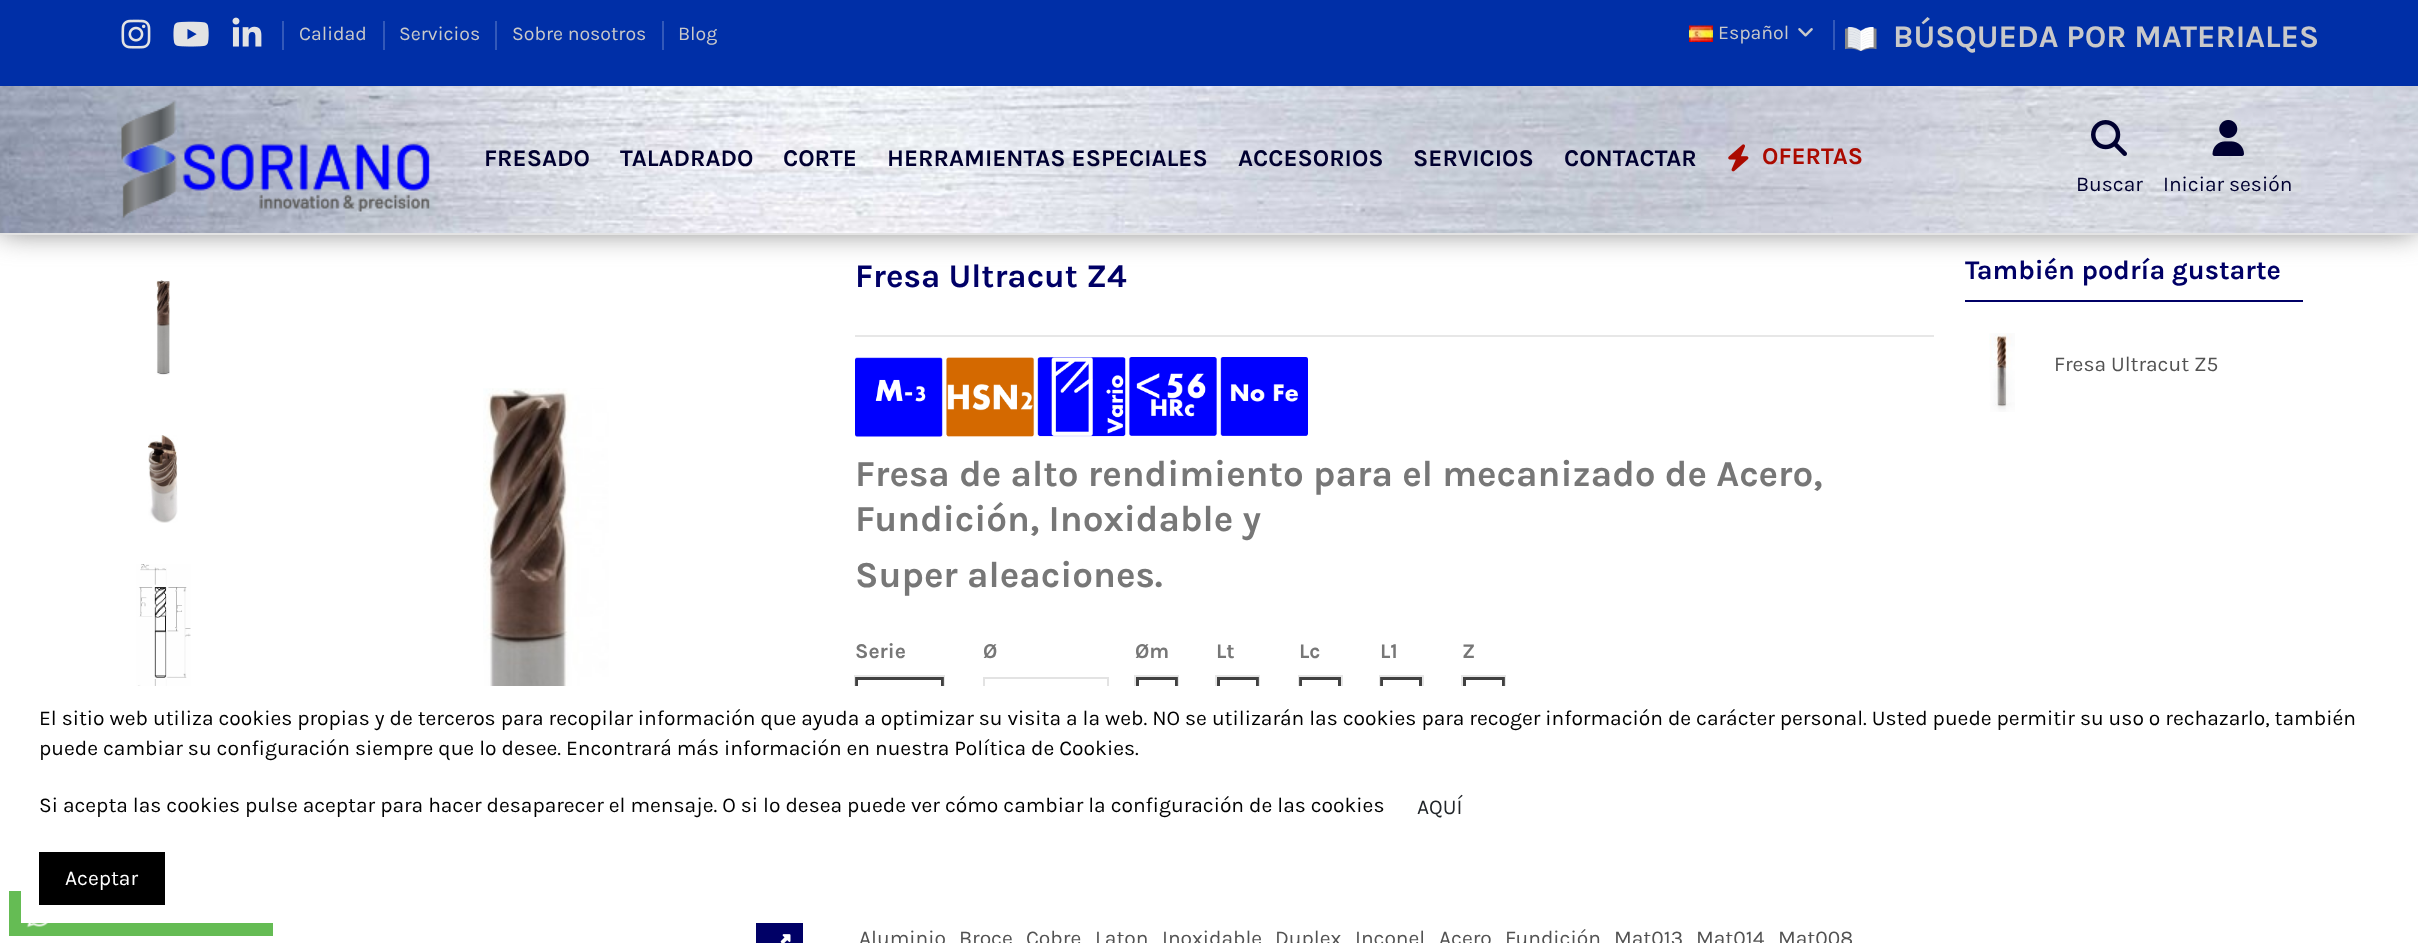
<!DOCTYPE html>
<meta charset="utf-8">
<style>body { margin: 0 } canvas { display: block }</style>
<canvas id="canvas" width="2418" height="943"></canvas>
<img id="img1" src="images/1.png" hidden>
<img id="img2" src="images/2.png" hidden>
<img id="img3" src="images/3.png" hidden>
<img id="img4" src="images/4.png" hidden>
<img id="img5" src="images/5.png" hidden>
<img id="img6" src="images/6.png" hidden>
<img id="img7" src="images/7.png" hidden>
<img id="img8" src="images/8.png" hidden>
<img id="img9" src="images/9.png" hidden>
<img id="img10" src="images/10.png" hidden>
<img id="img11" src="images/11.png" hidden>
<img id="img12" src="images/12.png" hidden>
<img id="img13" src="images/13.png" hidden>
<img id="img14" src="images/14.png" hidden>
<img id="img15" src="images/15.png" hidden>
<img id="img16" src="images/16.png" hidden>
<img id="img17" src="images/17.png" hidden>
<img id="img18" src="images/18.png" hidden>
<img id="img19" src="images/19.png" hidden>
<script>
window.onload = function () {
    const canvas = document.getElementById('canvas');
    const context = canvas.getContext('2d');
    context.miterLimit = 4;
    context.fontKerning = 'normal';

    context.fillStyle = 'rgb(255, 255, 255)';
    context.fillRect(0, 0, 2418, 943);
    context.fillStyle = 'rgb(119, 119, 119)';
    context.filter = 'blur(15px)';
    context.beginPath();
    context.rect(0, -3, 2418, 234);
    context.fill();
    context.filter = 'none';
    context.drawImage(document.getElementById('img1'), 0, 86, 2418, 147);
    context.fillStyle = 'rgb(227, 227, 227)';
    context.fillRect(0, 233, 2418, 2);
    context.fillStyle = 'rgb(0, 47, 167)';
    context.fillRect(0, 0, 2418, 86);
    context.drawImage(document.getElementById('img2'), 121, 19, 30, 30);
    context.drawImage(document.getElementById('img3'), 173, 21, 36, 26);
    context.drawImage(document.getElementById('img4'), 232, 17, 30, 30);
    context.fillStyle = 'rgb(51, 89, 185)';
    context.fillRect(282, 21, 2, 29);
    context.fillRect(383, 21, 2, 29);
    context.fillRect(495, 21, 2, 29);
    context.fillRect(662, 21, 2, 29);
    context.drawImage(document.getElementById('img5'), 1689, 25, 24, 17);
    context.drawImage(document.getElementById('img6'), 1798, 28, 15, 9);
    context.fillRect(1833, 20, 2, 30);
    context.drawImage(document.getElementById('img7'), 1845, 27, 32, 24);
    context.drawImage(document.getElementById('img8'), 121, 100, 309, 118);
    context.drawImage(document.getElementById('img9'), 1728, 144, 21, 28);
    context.drawImage(document.getElementById('img10'), 2091, 120, 36, 36);
    context.drawImage(document.getElementById('img11'), 2212, 120, 32, 36);
    context.fillStyle = 'rgb(101, 188, 84)';
    context.fillRect(9, 891, 264, 45);
    context.drawImage(document.getElementById('img12'), 26, 923, 26, 5);
    context.drawImage(document.getElementById('img13'), 156, 280, 14, 95);
    context.drawImage(document.getElementById('img14'), 148, 435, 30, 88);
    context.drawImage(document.getElementById('img15'), 136, 564, 55, 122);
    context.drawImage(document.getElementById('img16'), 483, 388, 126, 298);
    context.fillStyle = 'rgb(0, 0, 102)';
    context.fillRect(756, 923, 47, 20);
    context.drawImage(document.getElementById('img17'), 780, 934, 11, 9);
    context.fillStyle = 'rgb(231, 231, 231)';
    context.fillRect(855, 335, 1079, 2);
    context.drawImage(document.getElementById('img18'), 855, 357, 453, 80);
    context.strokeStyle = 'rgb(65, 65, 65)';
    context.lineWidth = 3;
    context.strokeRect(856.5, 678.5, 86, 39);
    context.strokeStyle = 'rgba(160, 160, 160, 0.25)';
    context.lineWidth = 2;
    context.strokeRect(855, 676, 89, 43);
    context.strokeStyle = 'rgb(227, 227, 227)';
    context.strokeRect(984, 678, 124, 53);
    context.strokeStyle = 'rgb(65, 65, 65)';
    context.lineWidth = 3;
    context.strokeRect(1137.5, 678.5, 39, 39);
    context.strokeStyle = 'rgba(160, 160, 160, 0.25)';
    context.lineWidth = 2;
    context.strokeRect(1135, 676, 43, 43);
    context.strokeStyle = 'rgb(65, 65, 65)';
    context.lineWidth = 3;
    context.strokeRect(1218.5, 678.5, 39, 39);
    context.strokeStyle = 'rgba(160, 160, 160, 0.25)';
    context.lineWidth = 2;
    context.strokeRect(1216, 676, 43, 43);
    context.strokeStyle = 'rgb(65, 65, 65)';
    context.lineWidth = 3;
    context.strokeRect(1300.5, 678.5, 39, 39);
    context.strokeStyle = 'rgba(160, 160, 160, 0.25)';
    context.lineWidth = 2;
    context.strokeRect(1299, 676, 43, 43);
    context.strokeStyle = 'rgb(65, 65, 65)';
    context.lineWidth = 3;
    context.strokeRect(1381.5, 678.5, 39, 39);
    context.strokeStyle = 'rgba(160, 160, 160, 0.25)';
    context.lineWidth = 2;
    context.strokeRect(1380, 676, 43, 43);
    context.strokeStyle = 'rgb(65, 65, 65)';
    context.lineWidth = 3;
    context.strokeRect(1464.5, 678.5, 39, 39);
    context.strokeStyle = 'rgba(160, 160, 160, 0.25)';
    context.lineWidth = 2;
    context.strokeRect(1462, 676, 43, 43);
    context.fillStyle = 'rgb(0, 0, 102)';
    context.fillRect(1965, 300, 338, 2);
    context.drawImage(document.getElementById('img19'), 1989, 333, 26, 79);
    context.fillStyle = 'rgb(255, 255, 255)';
    context.fillRect(21, 686, 1485, 237);
    context.fillStyle = 'rgb(0, 0, 0)';
    context.fillRect(39, 852, 126, 53);
    context.font = '19.5px Karla';
    context.fillStyle = 'rgb(201, 201, 201)';
    context.fillText('Calidad', 299, 40);
    context.fillText('Servicios', 399, 40);
    context.fillText('Sobre nosotros', 512, 40);
    context.fillText('Blog', 678, 40);
    context.fillText('Español', 1718, 39);
    context.font = 'bold 31.5px Karla';
    context.fillText('BÚSQUEDA POR MATERIALES', 1893, 47);
    context.font = 'bold 24px Karla';
    context.fillStyle = 'rgb(0, 0, 48)';
    context.fillText('FRESADO', 484, 166);
    context.fillText('TALADRADO', 620, 166);
    context.fillText('CORTE', 783, 166);
    context.fillText('HERRAMIENTAS ESPECIALES', 887, 166);
    context.fillText('ACCESORIOS', 1238, 166);
    context.fillText('SERVICIOS', 1413, 166);
    context.fillText('CONTACTAR', 1564, 166);
    context.fillStyle = 'rgb(171, 10, 0)';
    context.fillText('OFERTAS', 1762, 164);
    context.font = '21px Karla';
    context.fillStyle = 'rgb(0, 0, 48)';
    context.fillText('Buscar', 2076, 191);
    context.fillText('Iniciar sesión', 2163, 191);
    context.font = 'bold 33px Karla';
    context.fillStyle = 'rgb(0, 0, 102)';
    context.fillText('Fresa Ultracut Z4', 855, 287);
    context.font = 'bold 36.75px Karla';
    context.fillStyle = 'rgb(119, 119, 119)';
    context.fillText('Fresa de alto rendimiento para el mecanizado de Acero,', 855, 486);
    context.fillText('Fundición, Inoxidable y', 855, 531);
    context.fillText('Super aleaciones.', 855, 587);
    context.font = 'bold 21px Karla';
    context.fillText('Serie', 855, 658);
    context.fillText('Ø', 983, 658);
    context.fillText('Øm', 1135, 658);
    context.fillText('Lt', 1216, 658);
    context.fillText('Lc', 1299, 658);
    context.fillText('L1', 1380, 658);
    context.fillText('Z', 1462, 658);
    context.font = '21px Karla';
    context.fillStyle = 'rgb(82, 82, 82)';
    context.fillText('Aluminio', 859, 945);
    context.fillText('Broce', 959, 945);
    context.fillText('Cobre', 1026, 945);
    context.fillText('Laton', 1095, 945);
    context.fillText('Inoxidable', 1162, 945);
    context.fillText('Duplex', 1275, 945);
    context.fillText('Inconel', 1355, 945);
    context.fillText('Acero', 1439, 945);
    context.fillText('Fundición', 1505, 945);
    context.fillText('Mat013', 1614, 945);
    context.fillText('Mat014', 1696, 945);
    context.fillText('Mat008', 1778, 945);
    context.font = 'bold 27px Karla';
    context.fillStyle = 'rgb(0, 0, 102)';
    context.fillText('También podría gustarte', 1965, 279);
    context.font = '21px Karla';
    context.fillStyle = 'rgb(82, 82, 82)';
    context.fillText('Fresa Ultracut Z5', 2054, 371);
    context.fillStyle = 'rgb(0, 0, 0)';
    context.fillText('El sitio web utiliza cookies propias y de terceros para recopilar información que ayuda a optimizar su visita a la web. NO se utilizarán las cookies para recoger información de carácter personal. Usted puede permitir su uso o rechazarlo, también', 39, 725);
    context.fillText('puede cambiar su configuración siempre que lo desee. Encontrará más información en nuestra Política de Cookies.', 39, 755);
    context.fillText('Si acepta las cookies pulse aceptar para hacer desaparecer el mensaje. O si lo desea puede ver cómo cambiar la configuración de las cookies', 39, 812);
    context.fillStyle = 'rgb(33, 37, 41)';
    context.fillText('AQUÍ', 1417, 814);
    context.fillStyle = 'rgb(255, 255, 255)';
    context.fillText('Aceptar', 65, 885);
};
</script>
